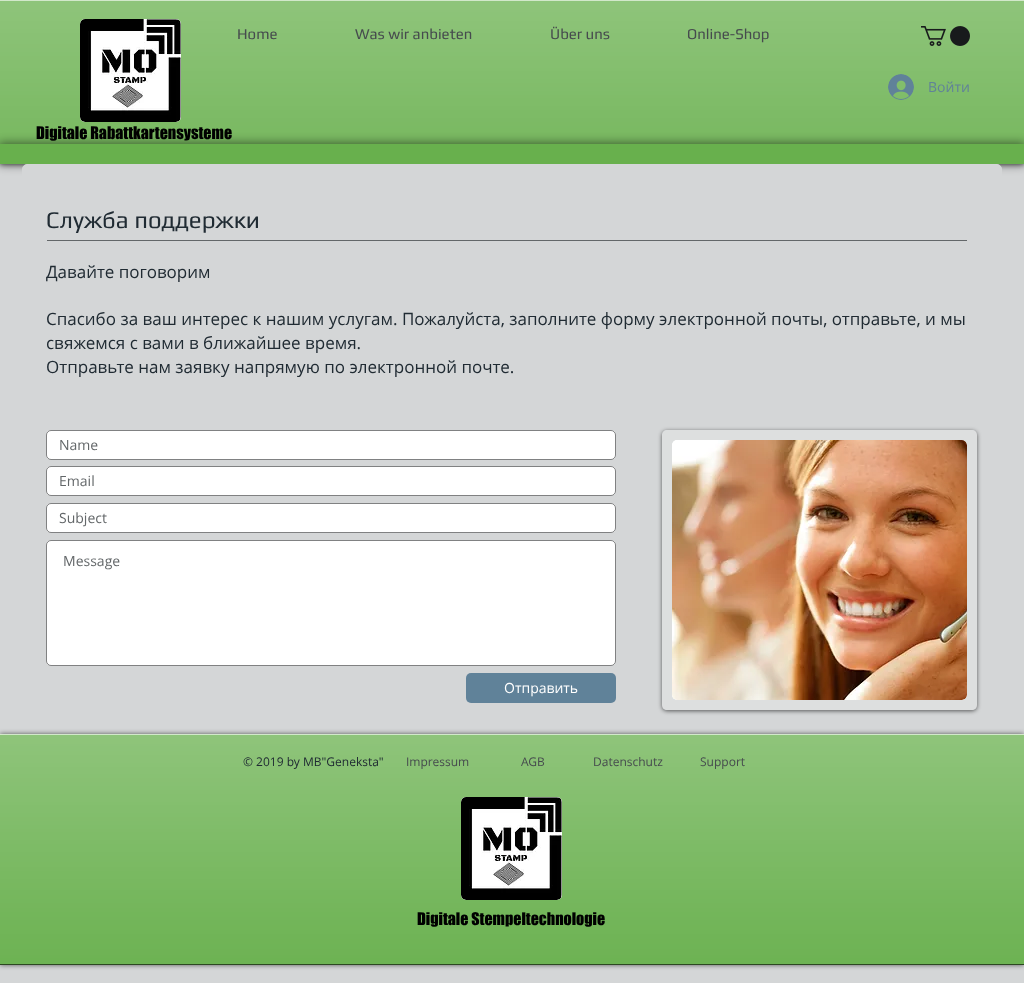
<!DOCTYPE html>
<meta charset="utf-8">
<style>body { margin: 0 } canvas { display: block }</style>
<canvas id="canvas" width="1024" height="983"></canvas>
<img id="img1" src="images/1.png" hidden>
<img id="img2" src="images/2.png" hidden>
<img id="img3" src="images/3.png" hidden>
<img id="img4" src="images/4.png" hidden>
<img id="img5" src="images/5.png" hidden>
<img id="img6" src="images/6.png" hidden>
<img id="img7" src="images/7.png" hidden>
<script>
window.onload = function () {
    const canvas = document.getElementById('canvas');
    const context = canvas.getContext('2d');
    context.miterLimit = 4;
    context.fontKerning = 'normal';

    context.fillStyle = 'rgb(212, 214, 215)';
    context.fillRect(0, 0, 1024, 983);
    context.fillStyle = 'rgba(0, 0, 0, 0.6)';
    context.filter = 'blur(2.5px)';
    context.beginPath();
    context.rect(0, 0, 1024, 164);
    context.fill();
    context.filter = 'none';
    context.fillStyle = 'rgb(104, 176, 77)';
    context.fillRect(0, 1, 1024, 143);
    context.drawImage(document.getElementById('img1'), 0, 1, 1024, 143);
    context.fillStyle = 'rgb(210, 232, 202)';
    context.fillRect(0, 0, 1024, 1);
    context.fillStyle = 'rgb(255, 255, 255)';
    context.beginPath();
    context.roundRect(80, 19, 101, 103, 5);
    context.fill();
    context.drawImage(document.getElementById('img2'), 80, 19, 101, 103);
    context.drawImage(document.getElementById('img3'), 921, 26, 49, 20);
    context.drawImage(document.getElementById('img4'), 888, 74, 26, 26);
    context.fillStyle = 'rgba(0, 0, 0, 0.5)';
    context.filter = 'blur(5px)';
    context.beginPath();
    context.rect(-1, 143, 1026, 22);
    context.fill();
    context.filter = 'none';
    context.fillStyle = 'rgb(104, 176, 77)';
    context.fillRect(0, 144, 1024, 20);
    context.fillStyle = 'rgb(212, 214, 215)';
    context.beginPath();
    context.roundRect(22.5, 164.5, 979, 569, 4.5);
    context.fill();
    context.strokeStyle = 'rgb(212, 214, 215)';
    context.stroke();
    context.fillStyle = 'rgb(99, 103, 105)';
    context.fillRect(47, 240, 920, 1);
    context.fillStyle = 'rgb(255, 255, 255)';
    context.beginPath();
    context.roundRect(46, 430, 570, 30, 5);
    context.fill();
    context.beginPath();
    context.roundRect(46.5, 430.5, 569, 29, 4.5);
    context.strokeStyle = 'rgba(24, 26, 28, 0.55)';
    context.stroke();
    context.beginPath();
    context.roundRect(46, 466, 570, 30, 5);
    context.fill();
    context.beginPath();
    context.roundRect(46.5, 466.5, 569, 29, 4.5);
    context.stroke();
    context.beginPath();
    context.roundRect(46, 503, 570, 30, 5);
    context.fill();
    context.beginPath();
    context.roundRect(46.5, 503.5, 569, 29, 4.5);
    context.stroke();
    context.beginPath();
    context.roundRect(46, 540, 570, 126, 5);
    context.fill();
    context.beginPath();
    context.roundRect(46.5, 540.5, 569, 125, 4.5);
    context.stroke();
    context.fillStyle = 'rgb(96, 130, 153)';
    context.beginPath();
    context.roundRect(466, 673, 150, 30, 5);
    context.fill();
    context.save();
    context.beginPath();
    context.moveTo(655, 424);
    context.lineTo(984, 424);
    context.lineTo(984, 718);
    context.lineTo(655, 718);
    context.closePath();
    context.moveTo(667, 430);
    context.lineTo(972, 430);
    context.bezierCurveTo(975, 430, 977, 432, 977, 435);
    context.lineTo(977, 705);
    context.bezierCurveTo(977, 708, 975, 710, 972, 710);
    context.lineTo(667, 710);
    context.bezierCurveTo(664, 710, 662, 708, 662, 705);
    context.lineTo(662, 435);
    context.bezierCurveTo(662, 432, 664, 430, 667, 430);
    context.closePath();
    context.clip('evenodd');
    context.fillStyle = 'rgba(0, 0, 0, 0.6)';
    context.filter = 'blur(2px)';
    context.beginPath();
    context.roundRect(662, 431, 315, 280, 5);
    context.fill();
    context.filter = 'none';
    context.restore();
    context.fillStyle = 'rgba(255, 255, 255, 0.22)';
    context.beginPath();
    context.roundRect(662, 430, 315, 280, 5);
    context.fill();
    context.fillStyle = 'rgb(255, 255, 255)';
    context.beginPath();
    context.roundRect(672, 440, 295, 260, 5);
    context.fill();
    context.drawImage(document.getElementById('img5'), 672, 440, 295, 260);
    context.fillStyle = 'rgba(0, 0, 0, 0.6)';
    context.filter = 'blur(2.5px)';
    context.beginPath();
    context.rect(0, 734, 1024, 231);
    context.fill();
    context.filter = 'none';
    context.fillStyle = 'rgb(104, 176, 77)';
    context.fillRect(0, 735, 1024, 229);
    context.drawImage(document.getElementById('img6'), 0, 735, 1024, 229);
    context.fillStyle = 'rgb(44, 72, 33)';
    context.fillRect(0, 964, 1024, 1);
    context.fillStyle = 'rgb(210, 232, 202)';
    context.fillRect(0, 734, 1024, 1);
    context.fillStyle = 'rgb(255, 255, 255)';
    context.beginPath();
    context.roundRect(461, 797, 101, 103, 5);
    context.fill();
    context.drawImage(document.getElementById('img7'), 461, 797, 101, 103);
    context.font = '15px Play';
    context.fillStyle = 'rgb(70, 75, 78)';
    context.fillText('Home', 237, 39);
    context.fillText('Was wir anbieten', 355, 39);
    context.fillText('Über uns', 550, 39);
    context.fillText('Online-Shop', 687, 39);
    context.font = '14px Open Sans';
    context.fillStyle = 'rgb(96, 130, 153)';
    context.fillText('Войти', 928, 92);
    context.font = '16px "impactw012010"';
    context.fillStyle = 'rgb(0, 0, 0)';
    context.fillText('Digitale Rabattkartensysteme', 36, 139);
    context.font = '24px Play';
    context.fillStyle = 'rgb(32, 43, 51)';
    context.fillText('Служба поддержки', 46, 228);
    context.font = '17px Open Sans';
    context.fillText('Давайте поговорим', 46, 278);
    context.fillText('Спасибо за ваш интерес к нашим услугам. Пожалуйста, заполните форму электронной почты, отправьте, и мы', 46, 325);
    context.fillText('свяжемся с вами в ближайшее время.', 46, 349);
    context.fillText('Отправьте нам заявку напрямую по электронной почте.', 46, 373);
    context.font = '14px Open Sans';
    context.fillStyle = 'rgb(99, 103, 105)';
    context.fillText('Name', 59, 450);
    context.fillText('Email', 59, 486);
    context.fillText('Subject', 59, 523);
    context.fillText('Message', 63, 566);
    context.fillStyle = 'rgb(255, 255, 255)';
    context.fillText('Отправить', 504, 693);
    context.font = '12px Open Sans';
    context.fillStyle = 'rgb(32, 43, 51)';
    context.fillText('© 2019 by MB"Geneksta"', 243, 766);
    context.fillStyle = 'rgb(70, 75, 78)';
    context.fillText('Impressum', 406, 766);
    context.fillText('AGB', 521, 766);
    context.fillText('Datenschutz', 593, 766);
    context.fillText('Support', 700, 766);
    context.font = '16px "impactw012010"';
    context.fillStyle = 'rgb(0, 0, 0)';
    context.fillText('Digitale Stempeltechnologie', 417, 925);
};
</script>
